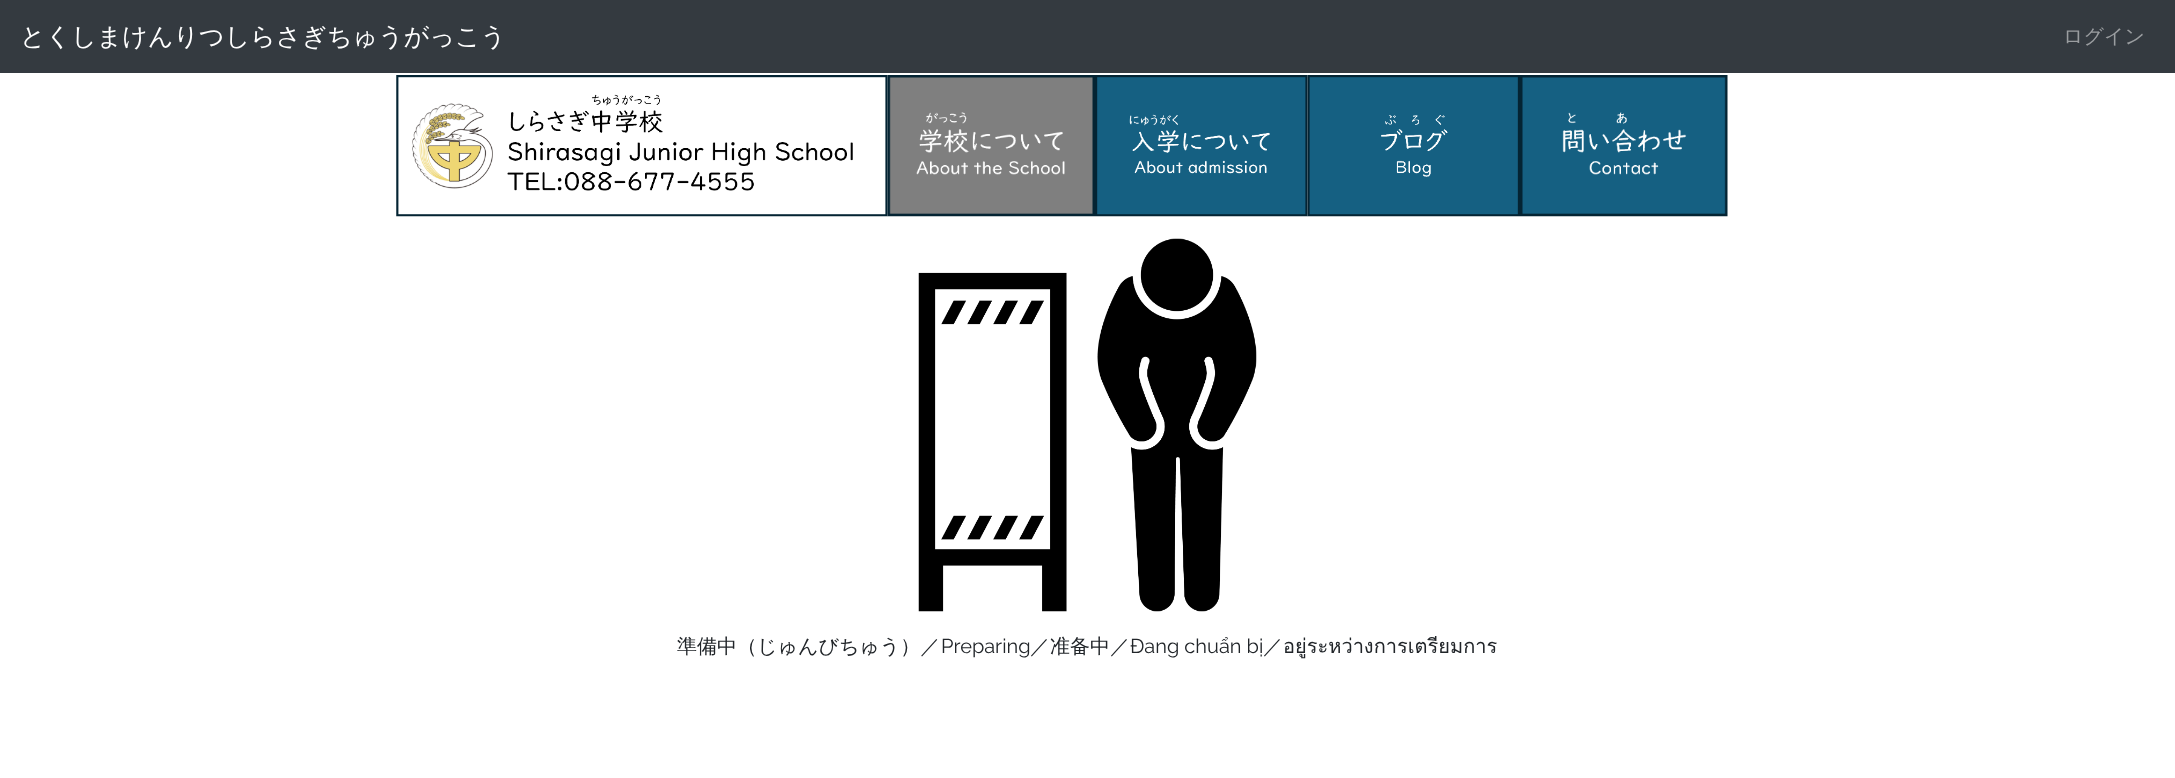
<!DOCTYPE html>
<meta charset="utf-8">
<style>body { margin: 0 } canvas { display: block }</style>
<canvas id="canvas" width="2175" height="778"></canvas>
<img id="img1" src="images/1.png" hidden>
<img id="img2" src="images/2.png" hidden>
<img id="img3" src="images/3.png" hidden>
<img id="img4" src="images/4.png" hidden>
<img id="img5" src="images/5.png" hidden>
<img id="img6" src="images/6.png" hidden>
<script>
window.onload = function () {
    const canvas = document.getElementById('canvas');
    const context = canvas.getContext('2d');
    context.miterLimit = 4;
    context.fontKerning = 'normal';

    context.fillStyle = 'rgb(255, 255, 255)';
    context.fillRect(0, 0, 2175, 778);
    context.fillStyle = 'rgb(52, 58, 64)';
    context.fillRect(0, 0, 2175, 73);
    context.drawImage(document.getElementById('img1'), 396, 75, 492, 142);
    context.drawImage(document.getElementById('img2'), 887, 75, 208, 142);
    context.drawImage(document.getElementById('img3'), 1095, 75, 213, 142);
    context.drawImage(document.getElementById('img4'), 1307, 75, 213, 142);
    context.drawImage(document.getElementById('img5'), 1520, 75, 208, 142);
    context.drawImage(document.getElementById('img6'), 918, 238, 339, 374);
    context.font = '500 25px WenQuanYi Zen Hei';
    context.fillStyle = 'rgb(255, 255, 255)';
    context.fillText('とくしまけんりつしらさぎちゅうがっこう', 20, 45);
    context.font = '500 20px WenQuanYi Zen Hei';
    context.fillStyle = 'rgb(154, 157, 160)';
    context.fillText('ログイン', 2063, 43);
    context.fillStyle = 'rgb(33, 37, 41)';
    context.fillText('準備中（じゅんびちゅう）／', 677, 653);
    context.font = '20px Raleway';
    context.fillText('Preparing', 941, 653);
    context.font = '500 20px WenQuanYi Zen Hei';
    context.fillText('／准备中／', 1030, 653);
    context.font = '20px Raleway';
    context.fillText('Đang chuẩn bị', 1130, 653);
    context.font = '500 20px WenQuanYi Zen Hei';
    context.fillText('／', 1263, 653);
    context.font = '20px Loma';
    context.fillText('อยู่ระหว่างการเตรียมการ', 1283, 653);
};
</script>
